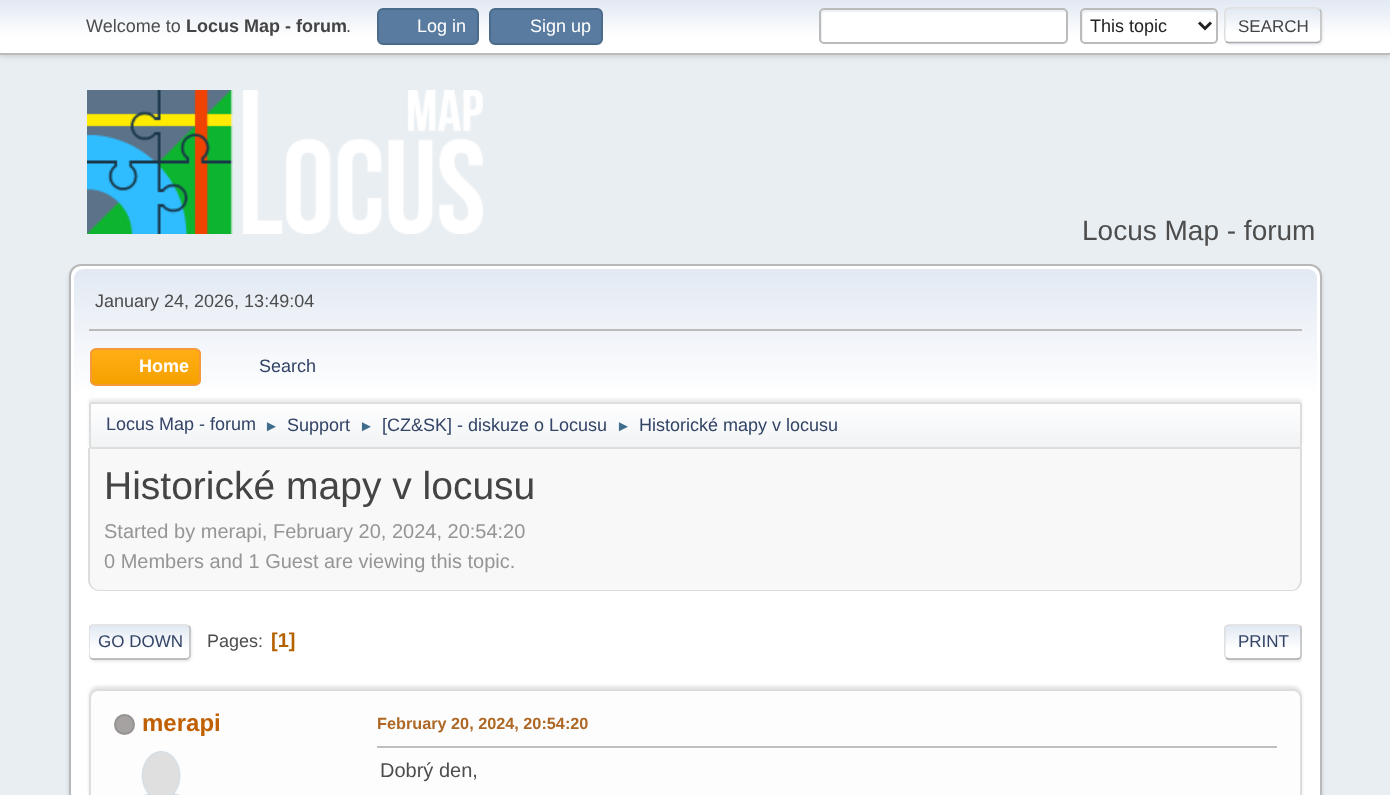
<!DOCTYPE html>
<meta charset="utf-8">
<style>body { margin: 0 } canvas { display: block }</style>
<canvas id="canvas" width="1390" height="795"></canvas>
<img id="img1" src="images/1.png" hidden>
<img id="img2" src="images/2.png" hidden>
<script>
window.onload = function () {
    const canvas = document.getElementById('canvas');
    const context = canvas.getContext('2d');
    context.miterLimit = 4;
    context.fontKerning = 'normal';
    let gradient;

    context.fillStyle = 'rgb(233, 238, 242)';
    context.fillRect(0, 0, 1390, 795);
    context.fillStyle = 'rgba(0, 0, 0, 0.16)';
    context.filter = 'blur(3px)';
    context.beginPath();
    context.rect(0, 2, 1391, 54);
    context.fill();
    context.filter = 'none';
    gradient = context.createLinearGradient(695, 0, 695, 53);
    gradient.addColorStop(0, 'rgb(226, 233, 243)');
    gradient.addColorStop(0.7, 'rgb(255, 255, 255)');
    context.fillStyle = gradient;
    context.fillRect(0, 0, 1390, 53);
    context.fillStyle = 'rgb(187, 187, 187)';
    context.fillRect(0, 53, 1390, 2);
    context.fillStyle = 'rgb(89, 123, 159)';
    context.beginPath();
    context.roundRect(378, 9, 100, 35, 5);
    context.fill();
    context.strokeStyle = 'rgb(74, 107, 140)';
    context.lineWidth = 2;
    context.stroke();
    context.beginPath();
    context.roundRect(490, 9, 112, 35, 5);
    context.fill();
    context.stroke();
    context.fillStyle = 'rgb(255, 255, 255)';
    context.beginPath();
    context.roundRect(819, 8, 249, 36, 5);
    context.fill();
    context.fillStyle = 'rgb(236, 241, 248)';
    context.beginPath();
    context.moveTo(825, 12);
    context.lineTo(1065, 12);
    context.lineTo(1067, 13);
    context.lineTo(1067, 12);
    context.bezierCurveTo(1067, 10, 1066, 9, 1064, 9);
    context.lineTo(824, 9);
    context.bezierCurveTo(822, 9, 821, 10, 821, 12);
    context.lineTo(821, 39);
    context.bezierCurveTo(821, 40, 821, 41, 822, 41);
    context.lineTo(822, 15);
    context.bezierCurveTo(822, 13, 823, 12, 825, 12);
    context.closePath();
    context.fill();
    context.beginPath();
    context.roundRect(820, 9, 247, 34, 4);
    context.strokeStyle = 'rgb(187, 187, 187)';
    context.stroke();
    context.fillStyle = 'rgb(255, 255, 255)';
    context.beginPath();
    context.roundRect(1080, 8, 138, 36, 5);
    context.fill();
    context.fillStyle = 'rgb(236, 241, 248)';
    context.beginPath();
    context.moveTo(1086, 12);
    context.bezierCurveTo(1099, 12, 1215, 11, 1217, 13);
    context.bezierCurveTo(1217, 5, 1199, 9, 1192, 9);
    context.lineTo(1106, 9);
    context.bezierCurveTo(1079, 9, 1082, 4, 1082, 26);
    context.bezierCurveTo(1082, 28, 1081, 39, 1083, 41);
    context.lineTo(1083, 15);
    context.bezierCurveTo(1083, 13, 1084, 12, 1086, 12);
    context.closePath();
    context.fill();
    context.beginPath();
    context.roundRect(1081, 9, 136, 34, 4);
    context.stroke();
    context.beginPath();
    context.moveTo(1199, 22.5);
    context.lineTo(1205, 28.5);
    context.lineTo(1211, 22.5);
    context.strokeStyle = 'rgb(34, 34, 34)';
    context.lineWidth = 3;
    context.stroke();
    context.fillStyle = 'rgba(221, 221, 221, 0.57)';
    context.filter = 'blur(1px)';
    context.beginPath();
    context.roundRect(1226, 9, 97, 36, 5);
    context.fill();
    context.filter = 'none';
    context.save();
    context.beginPath();
    context.roundRect(1224, 8, 98, 36, 5);
    context.clip();
    gradient = context.createLinearGradient(1273, -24, 1273, 9);
    gradient.addColorStop(0, 'rgb(226, 233, 243)');
    gradient.addColorStop(0.7, 'rgb(255, 255, 255)');
    context.fillStyle = gradient;
    context.fillRect(1224, 8, 98, 1);
    gradient = context.createLinearGradient(1273, 9, 1273, 42);
    gradient.addColorStop(0, 'rgb(226, 233, 243)');
    gradient.addColorStop(0.7, 'rgb(255, 255, 255)');
    context.fillStyle = gradient;
    context.fillRect(1224, 9, 98, 33);
    gradient = context.createLinearGradient(1273, 42, 1273, 75);
    gradient.addColorStop(0, 'rgb(226, 233, 243)');
    gradient.addColorStop(0.7, 'rgb(255, 255, 255)');
    context.fillStyle = gradient;
    context.fillRect(1224, 42, 98, 2);
    context.restore();
    context.beginPath();
    context.moveTo(1319.5, 9.5);
    context.bezierCurveTo(1320.5, 10, 1321, 11, 1321, 12);
    context.lineTo(1321, 39);
    context.bezierCurveTo(1321, 40, 1320.5, 41, 1319.5, 41.5);
    context.strokeStyle = 'rgb(187, 187, 187)';
    context.lineWidth = 1.5;
    context.stroke();
    context.beginPath();
    context.moveTo(1319.5, 41.5);
    context.lineTo(1317.5, 42.5);
    context.lineTo(1228, 42.5);
    context.lineTo(1226, 41.5);
    context.strokeStyle = 'rgb(170, 170, 170)';
    context.stroke();
    context.beginPath();
    context.moveTo(1226, 41.5);
    context.bezierCurveTo(1223.5, 39.5, 1225, 28.5, 1225, 25.5);
    context.bezierCurveTo(1225, 5, 1221.5, 8, 1243, 8);
    context.lineTo(1317, 8);
    context.lineTo(1319.5, 9.5);
    context.strokeStyle = 'rgb(221, 221, 221)';
    context.stroke();
    context.drawImage(document.getElementById('img1'), 87, 90, 396, 144);
    context.fillStyle = 'rgba(0, 0, 0, 0.14)';
    context.filter = 'blur(2px)';
    context.beginPath();
    context.roundRect(69, 267, 1253, 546, 12);
    context.fill();
    context.filter = 'none';
    context.fillStyle = 'rgb(255, 255, 255)';
    context.beginPath();
    context.roundRect(70, 265, 1251, 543, 11);
    context.fill();
    context.strokeStyle = 'rgb(184, 184, 184)';
    context.lineWidth = 2;
    context.stroke();
    gradient = context.createLinearGradient(695, 268, 695, 452);
    gradient.addColorStop(0, 'rgb(226, 233, 243)');
    gradient.addColorStop(0.7, 'rgb(255, 255, 255)');
    context.fillStyle = gradient;
    context.beginPath();
    context.roundRect(74, 269, 1243, 183, [9, 9, 0, 0]);
    context.fill();
    context.fillStyle = 'rgb(187, 187, 187)';
    context.fillRect(89, 329, 1213, 2);
    context.save();
    context.beginPath();
    context.roundRect(90, 348, 111, 38, 6);
    context.clip();
    gradient = context.createLinearGradient(146, 350, 146, 384);
    gradient.addColorStop(0, 'rgb(255, 174, 20)');
    gradient.addColorStop(1, 'rgb(245, 161, 0)');
    context.fillStyle = gradient;
    context.fillRect(90, 350, 111, 34);
    context.restore();
    context.beginPath();
    context.roundRect(91, 349, 109, 36, 5);
    context.strokeStyle = 'rgb(244, 154, 58)';
    context.stroke();
    context.fillStyle = 'rgba(0, 0, 0, 0.08)';
    context.filter = 'blur(1.5px)';
    context.beginPath();
    context.roundRect(89, 399, 1213, 47, 3);
    context.fill();
    context.filter = 'none';
    context.save();
    context.beginPath();
    context.roundRect(89, 402, 1213, 47, 3);
    context.clip();
    gradient = context.createLinearGradient(695, 403, 695, 447);
    gradient.addColorStop(0, 'rgb(255, 255, 255)');
    gradient.addColorStop(0.95, 'rgb(241, 243, 245)');
    context.fillStyle = gradient;
    context.fillRect(89, 404, 1213, 43);
    context.restore();
    context.beginPath();
    context.roundRect(90, 403, 1211, 45, 2);
    context.strokeStyle = 'rgb(221, 221, 221)';
    context.stroke();
    context.fillStyle = 'rgb(248, 248, 248)';
    context.beginPath();
    context.roundRect(89, 449, 1213, 142, [0, 0, 11, 11]);
    context.fill();
    context.fillStyle = 'rgb(221, 221, 221)';
    context.beginPath();
    context.moveTo(88, 448);
    context.lineTo(1302, 448);
    context.lineTo(1302, 580);
    context.bezierCurveTo(1302, 586, 1297, 591, 1292, 591);
    context.lineTo(99, 591);
    context.bezierCurveTo(93, 591, 88, 586, 88, 580);
    context.closePath();
    context.moveTo(90, 448);
    context.lineTo(1300, 448);
    context.lineTo(1300, 580);
    context.bezierCurveTo(1300, 585, 1296, 590, 1292, 590);
    context.lineTo(99, 590);
    context.bezierCurveTo(94, 590, 90, 585, 90, 580);
    context.closePath();
    context.fill('evenodd');
    context.fillStyle = 'rgba(221, 221, 221, 0.57)';
    context.filter = 'blur(1px)';
    context.beginPath();
    context.roundRect(90, 626, 102, 36, 5);
    context.fill();
    context.filter = 'none';
    context.fillStyle = 'rgb(255, 255, 255)';
    context.beginPath();
    context.roundRect(89, 624, 102, 36, 5);
    context.fill();
    context.save();
    context.beginPath();
    context.roundRect(89, 624, 102, 36, 5);
    context.clip();
    gradient = context.createLinearGradient(140, 626, 140, 659);
    gradient.addColorStop(0, 'rgb(226, 233, 243)');
    gradient.addColorStop(0.7, 'rgb(255, 255, 255)');
    context.fillStyle = gradient;
    context.fillRect(89, 626, 102, 33);
    gradient = context.createLinearGradient(140, 659, 140, 692);
    gradient.addColorStop(0, 'rgb(226, 233, 243)');
    gradient.addColorStop(0.7, 'rgb(255, 255, 255)');
    context.fillStyle = gradient;
    context.fillRect(89, 659, 102, 1);
    context.restore();
    context.beginPath();
    context.moveTo(188.5, 626);
    context.bezierCurveTo(189.5, 626.5, 190, 627.5, 190, 628.5);
    context.lineTo(190, 655.5);
    context.bezierCurveTo(190, 656.5, 189.5, 657.5, 188.5, 658);
    context.strokeStyle = 'rgb(187, 187, 187)';
    context.lineWidth = 1.5;
    context.stroke();
    context.beginPath();
    context.moveTo(188.5, 658);
    context.bezierCurveTo(188, 659, 187, 659, 186, 659);
    context.lineTo(93, 659);
    context.bezierCurveTo(92, 659, 91, 659, 90.5, 658);
    context.strokeStyle = 'rgb(170, 170, 170)';
    context.stroke();
    context.save();
    context.beginPath();
    context.rect(89, 614, 1213, 57);
    context.clip();
    context.beginPath();
    context.moveTo(90.5, 658);
    context.bezierCurveTo(88, 655.5, 89, 649.5, 89, 646.5);
    context.lineTo(89, 633);
    context.bezierCurveTo(89, 630, 88.5, 625, 93, 625);
    context.lineTo(186, 625);
    context.lineTo(188.5, 626);
    context.strokeStyle = 'rgb(221, 221, 221)';
    context.stroke();
    context.restore();
    context.save();
    context.beginPath();
    context.rect(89, 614, 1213, 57);
    context.clip();
    context.fillStyle = 'rgba(221, 221, 221, 0.57)';
    context.filter = 'blur(1px)';
    context.beginPath();
    context.roundRect(1226, 626, 78, 36, 5);
    context.fill();
    context.filter = 'none';
    context.restore();
    context.beginPath();
    context.roundRect(1224, 624, 78, 36, 5);
    context.fill();
    context.save();
    context.beginPath();
    context.roundRect(1224, 624, 78, 36, 5);
    context.clip();
    gradient = context.createLinearGradient(1263, 626, 1263, 659);
    gradient.addColorStop(0, 'rgb(226, 233, 243)');
    gradient.addColorStop(0.7, 'rgb(255, 255, 255)');
    context.fillStyle = gradient;
    context.fillRect(1224, 626, 78, 33);
    gradient = context.createLinearGradient(1263, 659, 1263, 692);
    gradient.addColorStop(0, 'rgb(226, 233, 243)');
    gradient.addColorStop(0.7, 'rgb(255, 255, 255)');
    context.fillStyle = gradient;
    context.fillRect(1224, 659, 78, 1);
    context.restore();
    context.beginPath();
    context.moveTo(1300, 626);
    context.bezierCurveTo(1301, 626.5, 1301, 627.5, 1301, 628.5);
    context.lineTo(1301, 655.5);
    context.bezierCurveTo(1301, 656.5, 1301, 657.5, 1300, 658);
    context.strokeStyle = 'rgb(187, 187, 187)';
    context.stroke();
    context.beginPath();
    context.moveTo(1300, 658);
    context.lineTo(1298, 659);
    context.lineTo(1228, 659);
    context.lineTo(1226, 658);
    context.strokeStyle = 'rgb(170, 170, 170)';
    context.stroke();
    context.beginPath();
    context.moveTo(1226, 658);
    context.bezierCurveTo(1223.5, 656, 1225, 645, 1225, 642);
    context.bezierCurveTo(1225, 623, 1221.5, 625, 1240, 625);
    context.lineTo(1297.5, 625);
    context.lineTo(1300, 626);
    context.strokeStyle = 'rgb(221, 221, 221)';
    context.stroke();
    context.fillStyle = 'rgba(0, 0, 0, 0.1)';
    context.filter = 'blur(1.5px)';
    context.beginPath();
    context.roundRect(89, 686, 1213, 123, 9);
    context.fill();
    context.filter = 'none';
    context.fillStyle = 'rgb(253, 253, 253)';
    context.beginPath();
    context.roundRect(90, 690, 1211, 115, 8);
    context.fill();
    context.lineWidth = 2;
    context.stroke();
    context.fillStyle = 'rgb(167, 162, 162)';
    context.beginPath();
    context.arc(124.5, 724.5, 9.5, 0, 2 * Math.PI);
    context.fill();
    context.strokeStyle = 'rgb(150, 146, 146)';
    context.stroke();
    context.drawImage(document.getElementById('img2'), 141, 751, 40, 44);
    context.fillStyle = 'rgb(191, 191, 191)';
    context.fillRect(377, 746, 900, 2);
    context.font = '18px Liberation Sans';
    context.fillStyle = 'rgb(77, 77, 77)';
    context.fillText('Welcome to', 86, 32);
    context.font = 'bold 18px Liberation Sans';
    context.fillStyle = 'rgb(68, 68, 68)';
    context.fillText('Locus Map - forum', 186, 32);
    context.font = '18px Liberation Sans';
    context.fillStyle = 'rgb(77, 77, 77)';
    context.fillText('.', 346, 32);
    context.fillStyle = 'rgb(255, 255, 255)';
    context.fillText('Log in', 417, 32);
    context.fillText('Sign up', 530, 32);
    context.fillStyle = 'rgb(34, 34, 34)';
    context.fillText('This topic', 1090, 32);
    context.font = '17px Liberation Sans';
    context.fillStyle = 'rgb(68, 68, 68)';
    context.fillText('SEARCH', 1238, 32);
    context.font = '28px Liberation Sans';
    context.fillStyle = 'rgb(77, 77, 77)';
    context.fillText('Locus Map - forum', 1082, 240);
    context.font = '18px Liberation Sans';
    context.fillText('January 24, 2026, 13:49:04', 95, 307);
    context.font = 'bold 18px Liberation Sans';
    context.fillStyle = 'rgb(255, 255, 255)';
    context.fillText('Home', 139, 372);
    context.font = '18px Liberation Sans';
    context.fillStyle = 'rgb(51, 68, 102)';
    context.fillText('Search', 259, 372);
    context.fillText('Locus Map - forum', 106, 430);
    context.font = '15px Liberation Sans';
    context.fillStyle = 'rgb(63, 107, 140)';
    context.fillText('►', 264, 431);
    context.font = '18px Liberation Sans';
    context.fillStyle = 'rgb(51, 68, 102)';
    context.fillText('Support', 287, 431);
    context.font = '15px Liberation Sans';
    context.fillStyle = 'rgb(63, 107, 140)';
    context.fillText('►', 359, 431);
    context.font = '18px Liberation Sans';
    context.fillStyle = 'rgb(51, 68, 102)';
    context.fillText('[CZ&SK] - diskuze o Locusu', 382, 431);
    context.font = '15px Liberation Sans';
    context.fillStyle = 'rgb(63, 107, 140)';
    context.fillText('►', 616, 431);
    context.font = '18px Liberation Sans';
    context.fillStyle = 'rgb(51, 68, 102)';
    context.fillText('Historické mapy v locusu', 639, 431);
    context.font = '39px Liberation Sans';
    context.fillStyle = 'rgb(68, 68, 68)';
    context.fillText('Historické mapy v locusu', 104, 499);
    context.font = '20px Liberation Sans';
    context.fillStyle = 'rgb(149, 149, 149)';
    context.fillText('Started by merapi, February 20, 2024, 20:54:20', 104, 538);
    context.fillText('0 Members and 1 Guest are viewing this topic.', 104, 568);
    context.font = '17px Liberation Sans';
    context.fillStyle = 'rgb(51, 68, 102)';
    context.fillText('GO DOWN', 98, 647);
    context.font = '18px Liberation Sans';
    context.fillStyle = 'rgb(77, 77, 77)';
    context.fillText('Pages:', 207, 647);
    context.font = 'bold 20px Liberation Sans';
    context.fillStyle = 'rgb(180, 97, 0)';
    context.fillText('[1]', 271, 647);
    context.font = '17px Liberation Sans';
    context.fillStyle = 'rgb(51, 68, 102)';
    context.fillText('PRINT', 1238, 647);
    context.font = 'bold 24px Liberation Sans';
    context.fillStyle = 'rgb(192, 96, 2)';
    context.fillText('merapi', 142, 731);
    context.font = 'bold 16.25px Liberation Sans';
    context.fillStyle = 'rgb(173, 104, 37)';
    context.fillText('February 20, 2024, 20:54:20', 377, 729);
    context.font = '20px Liberation Sans';
    context.fillStyle = 'rgb(77, 77, 77)';
    context.fillText('Dobrý den,', 380, 777);
};
</script>
